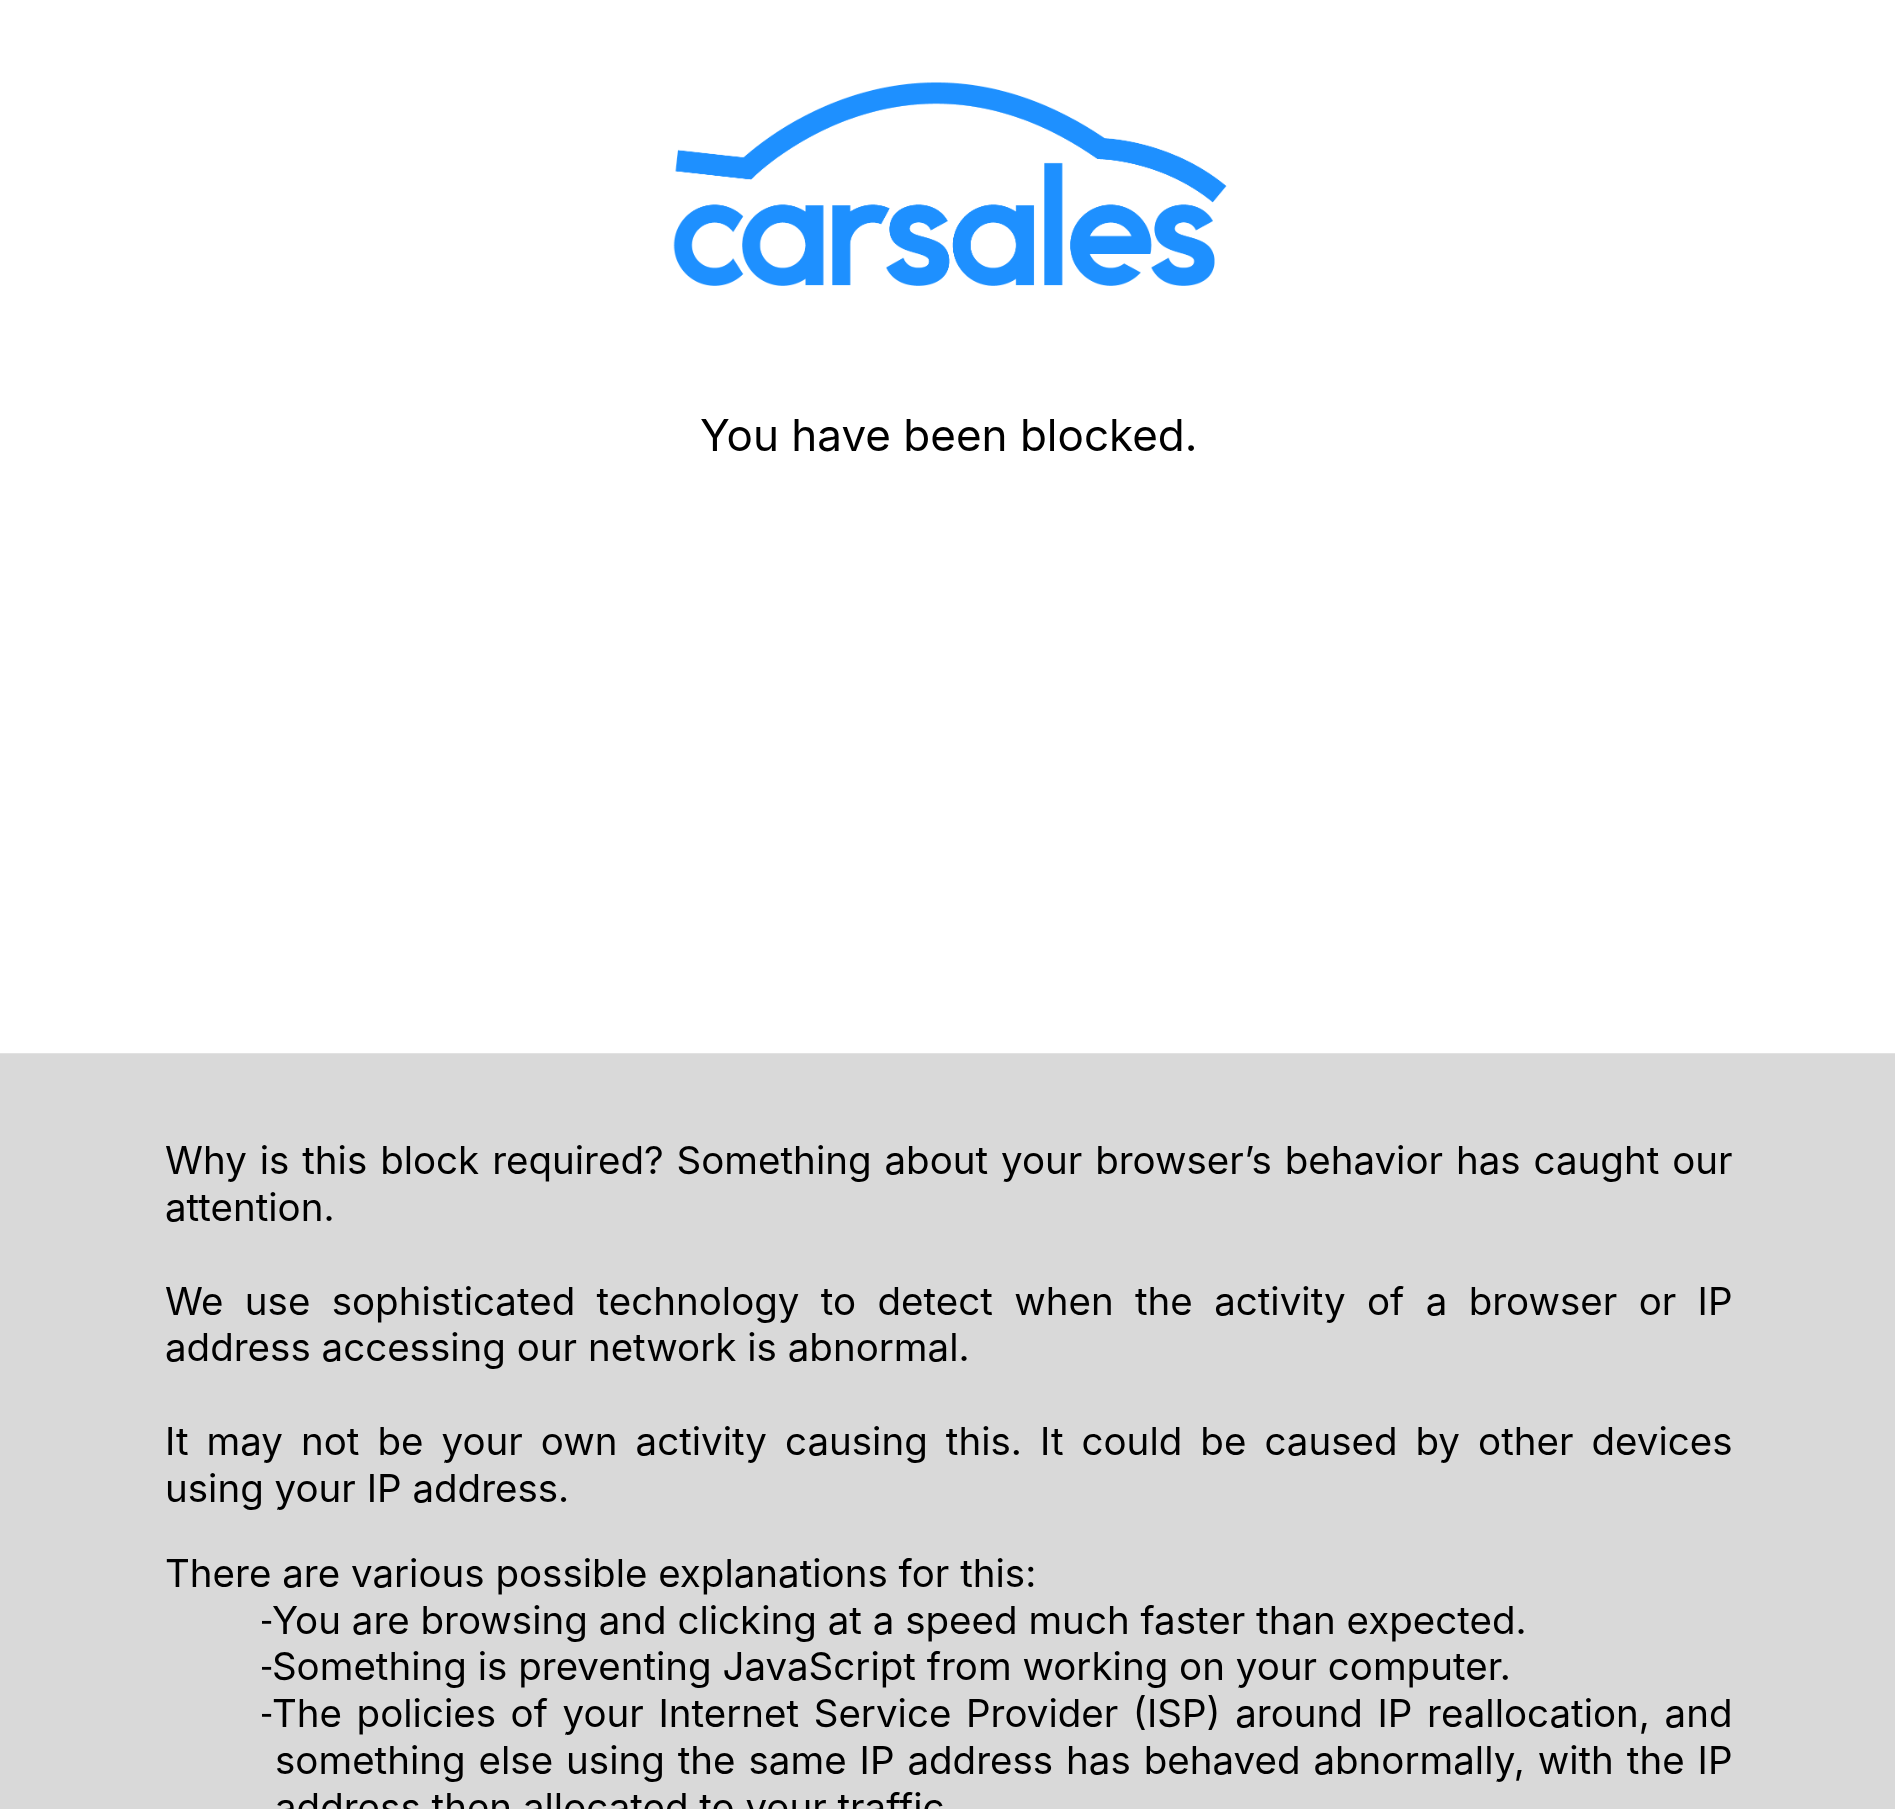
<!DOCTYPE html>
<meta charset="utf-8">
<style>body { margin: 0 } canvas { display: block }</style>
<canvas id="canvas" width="1895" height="1809"></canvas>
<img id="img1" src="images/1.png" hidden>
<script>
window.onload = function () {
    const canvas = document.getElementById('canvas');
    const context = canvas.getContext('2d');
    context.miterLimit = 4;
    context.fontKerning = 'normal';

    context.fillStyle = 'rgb(255, 255, 255)';
    context.fillRect(0, 0, 1895, 1809);
    context.drawImage(document.getElementById('img1'), 0, 82, 1895, 1727);
};
</script>
